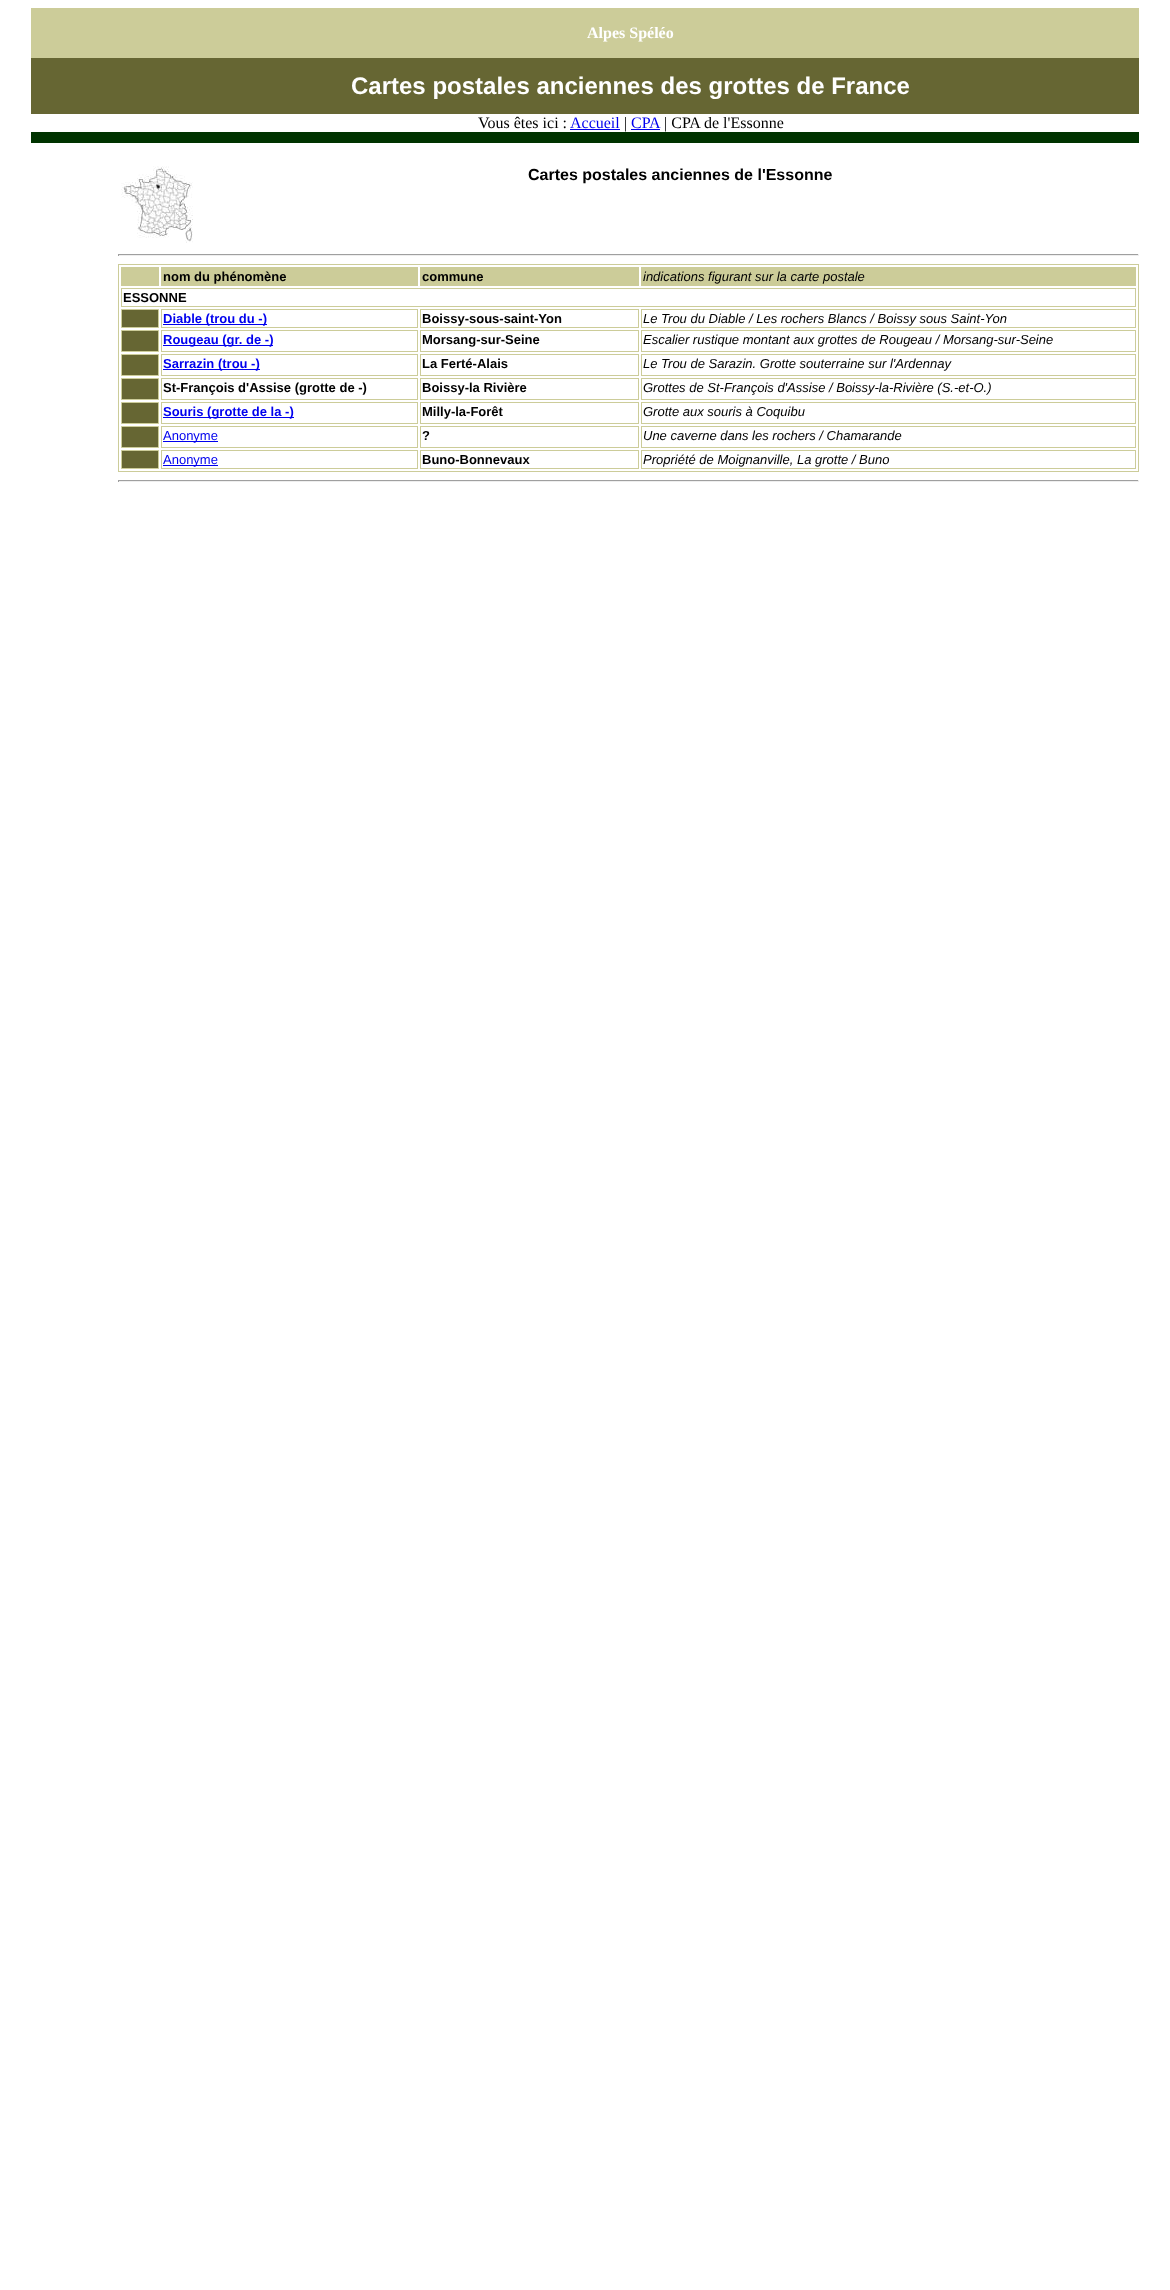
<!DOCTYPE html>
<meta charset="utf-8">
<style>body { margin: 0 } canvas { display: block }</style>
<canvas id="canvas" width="1170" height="2290"></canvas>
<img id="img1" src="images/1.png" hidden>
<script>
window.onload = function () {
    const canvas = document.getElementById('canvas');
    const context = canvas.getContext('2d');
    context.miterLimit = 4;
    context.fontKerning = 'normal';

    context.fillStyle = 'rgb(255, 255, 255)';
    context.fillRect(0, 0, 1170, 2290);
    context.fillStyle = 'rgb(204, 204, 153)';
    context.fillRect(31, 8, 1108, 50);
    context.fillStyle = 'rgb(102, 102, 51)';
    context.fillRect(31, 58, 1108, 56);
    context.fillStyle = 'rgb(0, 0, 238)';
    context.fillRect(570, 129, 50, 1);
    context.fillRect(631, 129, 29, 1);
    context.fillStyle = 'rgb(0, 51, 0)';
    context.fillRect(31, 132, 1108, 11);
    context.drawImage(document.getElementById('img1'), 121, 166, 72, 77);
    context.fillStyle = 'rgb(159, 159, 159)';
    context.fillRect(118, 254, 1021, 1);
    context.fillStyle = 'rgb(238, 238, 238)';
    context.fillRect(1138, 254, 1, 2);
    context.fillRect(118, 255, 1021, 1);
    context.fillStyle = 'rgb(159, 159, 159)';
    context.fillRect(118, 254, 1, 2);
    context.strokeStyle = 'rgb(204, 204, 153)';
    context.strokeRect(118.5, 264.5, 1020, 207);
    context.fillStyle = 'rgb(204, 204, 153)';
    context.fillRect(121, 267, 38, 19);
    context.fillRect(161, 267, 257, 19);
    context.fillRect(420, 267, 219, 19);
    context.fillRect(641, 267, 495, 19);
    context.strokeRect(121.5, 288.5, 1014, 18);
    context.fillStyle = 'rgb(102, 102, 51)';
    context.beginPath();
    context.rect(121.5, 309.5, 37, 18);
    context.fill();
    context.stroke();
    context.strokeRect(161.5, 309.5, 256, 18);
    context.fillStyle = 'rgb(0, 0, 238)';
    context.fillRect(163, 324, 104, 1);
    context.strokeRect(420.5, 309.5, 218, 18);
    context.strokeRect(641.5, 309.5, 494, 18);
    context.fillStyle = 'rgb(102, 102, 51)';
    context.beginPath();
    context.rect(121.5, 330.5, 37, 21);
    context.fill();
    context.stroke();
    context.strokeRect(161.5, 330.5, 256, 21);
    context.fillStyle = 'rgb(0, 0, 238)';
    context.fillRect(163, 345, 110, 1);
    context.strokeRect(420.5, 330.5, 218, 21);
    context.strokeRect(641.5, 330.5, 494, 21);
    context.fillStyle = 'rgb(102, 102, 51)';
    context.beginPath();
    context.rect(121.5, 354.5, 37, 21);
    context.fill();
    context.stroke();
    context.strokeRect(161.5, 354.5, 256, 21);
    context.fillStyle = 'rgb(0, 0, 238)';
    context.fillRect(163, 369, 97, 1);
    context.strokeRect(420.5, 354.5, 218, 21);
    context.strokeRect(641.5, 354.5, 494, 21);
    context.fillStyle = 'rgb(102, 102, 51)';
    context.beginPath();
    context.rect(121.5, 378.5, 37, 21);
    context.fill();
    context.stroke();
    context.strokeRect(161.5, 378.5, 256, 21);
    context.strokeRect(420.5, 378.5, 218, 21);
    context.strokeRect(641.5, 378.5, 494, 21);
    context.beginPath();
    context.rect(121.5, 402.5, 37, 21);
    context.fill();
    context.stroke();
    context.strokeRect(161.5, 402.5, 256, 21);
    context.fillStyle = 'rgb(0, 0, 238)';
    context.fillRect(163, 417, 131, 1);
    context.strokeRect(420.5, 402.5, 218, 21);
    context.strokeRect(641.5, 402.5, 494, 21);
    context.fillStyle = 'rgb(102, 102, 51)';
    context.beginPath();
    context.rect(121.5, 426.5, 37, 21);
    context.fill();
    context.stroke();
    context.strokeRect(161.5, 426.5, 256, 21);
    context.fillStyle = 'rgb(0, 0, 238)';
    context.fillRect(163, 441, 55, 1);
    context.strokeRect(420.5, 426.5, 218, 21);
    context.strokeRect(641.5, 426.5, 494, 21);
    context.fillStyle = 'rgb(102, 102, 51)';
    context.beginPath();
    context.rect(121.5, 450.5, 37, 18);
    context.fill();
    context.stroke();
    context.strokeRect(161.5, 450.5, 256, 18);
    context.fillStyle = 'rgb(0, 0, 238)';
    context.fillRect(163, 465, 55, 1);
    context.strokeRect(420.5, 450.5, 218, 18);
    context.strokeRect(641.5, 450.5, 494, 18);
    context.fillStyle = 'rgb(159, 159, 159)';
    context.fillRect(118, 480, 1021, 1);
    context.fillStyle = 'rgb(238, 238, 238)';
    context.fillRect(1138, 480, 1, 2);
    context.fillRect(118, 481, 1021, 1);
    context.fillStyle = 'rgb(159, 159, 159)';
    context.fillRect(118, 480, 1, 2);
    context.font = 'bold 16px Liberation Serif';
    context.fillStyle = 'rgb(255, 255, 255)';
    context.fillText('Alpes Spéléo', 587, 38);
    context.font = 'bold 24px Liberation Sans';
    context.fillText('Cartes postales anciennes des grottes de France', 351, 94);
    context.font = '16px Liberation Serif';
    context.fillStyle = 'rgb(0, 0, 0)';
    context.fillText('Vous êtes ici :', 478, 128);
    context.fillStyle = 'rgb(0, 0, 238)';
    context.fillText('Accueil', 570, 128);
    context.fillStyle = 'rgb(0, 0, 0)';
    context.fillText('|', 624, 128);
    context.fillStyle = 'rgb(0, 0, 238)';
    context.fillText('CPA', 631, 128);
    context.fillStyle = 'rgb(0, 0, 0)';
    context.fillText('| CPA de l\'Essonne', 664, 128);
    context.font = 'bold 16px Liberation Sans';
    context.fillText('Cartes postales anciennes de l\'Essonne', 528, 180);
    context.font = 'bold 13px Liberation Sans';
    context.fillText('nom du phénomène', 163, 281);
    context.fillText('commune', 422, 281);
    context.font = 'italic 13px Liberation Sans';
    context.fillText('indications figurant sur la carte postale', 643, 281);
    context.font = 'bold 13px Liberation Sans';
    context.fillText('ESSONNE', 123, 302);
    context.fillStyle = 'rgb(0, 0, 238)';
    context.fillText('Diable (trou du -)', 163, 323);
    context.fillStyle = 'rgb(0, 0, 0)';
    context.fillText('Boissy-sous-saint-Yon', 422, 323);
    context.font = 'italic 13px Liberation Sans';
    context.fillText('Le Trou du Diable / Les rochers Blancs / Boissy sous Saint-Yon', 643, 323);
    context.font = 'bold 13px Liberation Sans';
    context.fillStyle = 'rgb(0, 0, 238)';
    context.fillText('Rougeau (gr. de -)', 163, 344);
    context.fillStyle = 'rgb(0, 0, 0)';
    context.fillText('Morsang-sur-Seine', 422, 344);
    context.font = 'italic 13px Liberation Sans';
    context.fillText('Escalier rustique montant aux grottes de Rougeau / Morsang-sur-Seine', 643, 344);
    context.font = 'bold 13px Liberation Sans';
    context.fillStyle = 'rgb(0, 0, 238)';
    context.fillText('Sarrazin (trou -)', 163, 368);
    context.fillStyle = 'rgb(0, 0, 0)';
    context.fillText('La Ferté-Alais', 422, 368);
    context.font = 'italic 13px Liberation Sans';
    context.fillText('Le Trou de Sarazin. Grotte souterraine sur l\'Ardennay', 643, 368);
    context.font = 'bold 13px Liberation Sans';
    context.fillText('St-François d\'Assise (grotte de -)', 163, 392);
    context.fillText('Boissy-la Rivière', 422, 392);
    context.font = 'italic 13px Liberation Sans';
    context.fillText('Grottes de St-François d\'Assise / Boissy-la-Rivière (S.-et-O.)', 643, 392);
    context.font = 'bold 13px Liberation Sans';
    context.fillStyle = 'rgb(0, 0, 238)';
    context.fillText('Souris (grotte de la -)', 163, 416);
    context.fillStyle = 'rgb(0, 0, 0)';
    context.fillText('Milly-la-Forêt', 422, 416);
    context.font = 'italic 13px Liberation Sans';
    context.fillText('Grotte aux souris à Coquibu', 643, 416);
    context.font = '13px Liberation Sans';
    context.fillStyle = 'rgb(0, 0, 238)';
    context.fillText('Anonyme', 163, 440);
    context.font = 'bold 13px Liberation Sans';
    context.fillStyle = 'rgb(0, 0, 0)';
    context.fillText('?', 422, 440);
    context.font = 'italic 13px Liberation Sans';
    context.fillText('Une caverne dans les rochers / Chamarande', 643, 440);
    context.font = '13px Liberation Sans';
    context.fillStyle = 'rgb(0, 0, 238)';
    context.fillText('Anonyme', 163, 464);
    context.font = 'bold 13px Liberation Sans';
    context.fillStyle = 'rgb(0, 0, 0)';
    context.fillText('Buno-Bonnevaux', 422, 464);
    context.font = 'italic 13px Liberation Sans';
    context.fillText('Propriété de Moignanville, La grotte / Buno', 643, 464);
};
</script>
